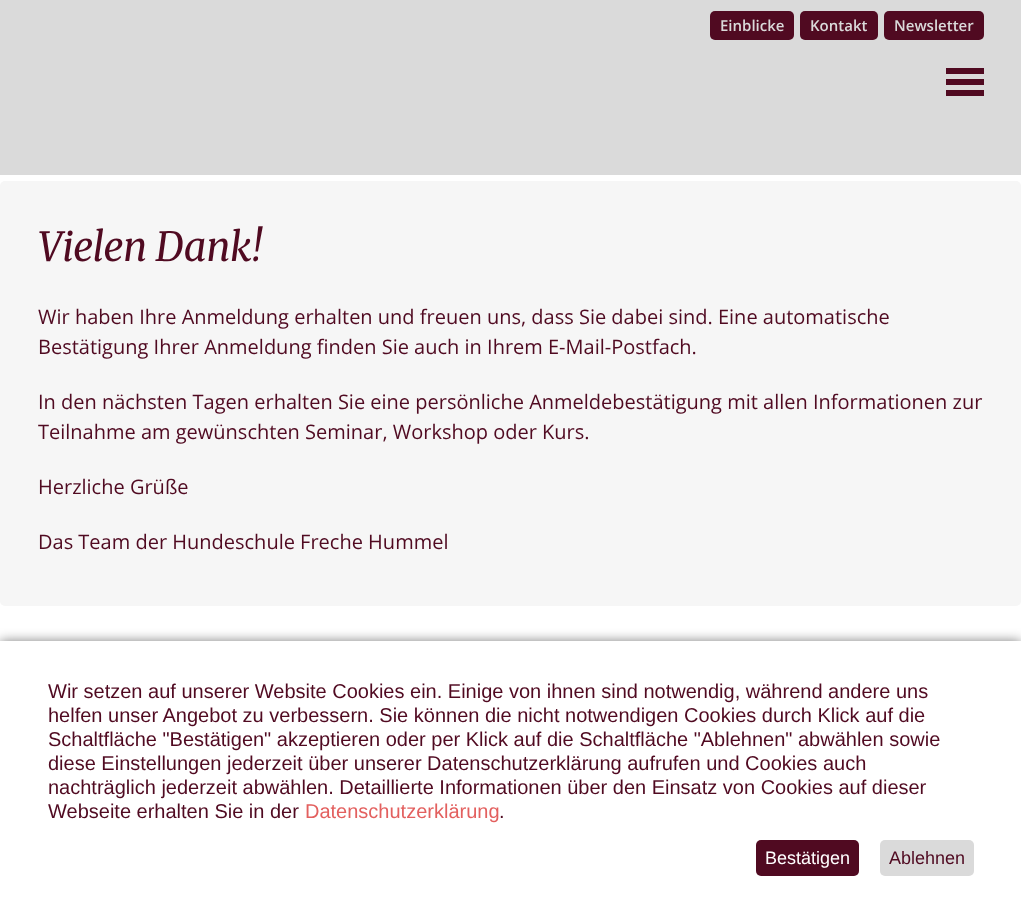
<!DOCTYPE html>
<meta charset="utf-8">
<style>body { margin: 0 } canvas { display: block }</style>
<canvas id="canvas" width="1021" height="922"></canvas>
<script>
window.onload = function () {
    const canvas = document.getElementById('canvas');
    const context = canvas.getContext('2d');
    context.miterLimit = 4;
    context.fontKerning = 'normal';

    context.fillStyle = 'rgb(255, 255, 255)';
    context.fillRect(0, 0, 1021, 922);
    context.fillStyle = 'rgb(218, 218, 218)';
    context.fillRect(0, 0, 1021, 175);
    context.fillStyle = 'rgb(80, 10, 33)';
    context.beginPath();
    context.roundRect(710, 11, 84, 29, 5);
    context.fill();
    context.beginPath();
    context.roundRect(800, 11, 78, 29, 5);
    context.fill();
    context.beginPath();
    context.roundRect(884, 11, 100, 29, 5);
    context.fill();
    context.fillRect(946, 68, 38, 6);
    context.fillRect(946, 79, 38, 6);
    context.fillRect(946, 90, 38, 6);
    context.fillStyle = 'rgb(246, 246, 246)';
    context.beginPath();
    context.roundRect(0, 181, 1021, 425, 5);
    context.fill();
    context.fillStyle = 'rgba(0, 0, 0, 0.5)';
    context.filter = 'blur(6px)';
    context.beginPath();
    context.rect(0, 641, 1021, 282);
    context.fill();
    context.filter = 'none';
    context.fillStyle = 'rgb(255, 255, 255)';
    context.fillRect(0, 641, 1021, 281);
    context.fillStyle = 'rgb(80, 10, 33)';
    context.beginPath();
    context.roundRect(756, 840, 103, 36, 5);
    context.fill();
    context.fillStyle = 'rgb(218, 218, 218)';
    context.beginPath();
    context.roundRect(880, 840, 94, 36, 5);
    context.fill();
    context.font = '600 15px Open Sans';
    context.fillText('Einblicke', 720, 31);
    context.fillText('Kontakt', 810, 31);
    context.fillText('Newsletter', 894, 31);
    context.font = 'italic 40px Merriweather';
    context.fillStyle = 'rgb(80, 10, 33)';
    context.fillText('Vielen Dank!', 38, 261);
    context.font = '20px Open Sans';
    context.fillText('Wir haben Ihre Anmeldung erhalten und freuen uns, dass Sie dabei sind. Eine automatische', 38, 324);
    context.fillText('Bestätigung Ihrer Anmeldung finden Sie auch in Ihrem E-Mail-Postfach.', 38, 354);
    context.fillText('In den nächsten Tagen erhalten Sie eine persönliche Anmeldebestätigung mit allen Informationen zur', 38, 409);
    context.fillText('Teilnahme am gewünschten Seminar, Workshop oder Kurs.', 38, 439);
    context.fillText('Herzliche Grüße', 38, 494);
    context.fillText('Das Team der Hundeschule Freche Hummel', 38, 549);
    context.font = '20px Liberation Sans';
    context.fillText('Wir setzen auf unserer Website Cookies ein. Einige von ihnen sind notwendig, während andere uns', 48, 698);
    context.fillText('helfen unser Angebot zu verbessern. Sie können die nicht notwendigen Cookies durch Klick auf die', 48, 722);
    context.fillText('Schaltfläche "Bestätigen" akzeptieren oder per Klick auf die Schaltfläche "Ablehnen" abwählen sowie', 48, 746);
    context.fillText('diese Einstellungen jederzeit über unserer Datenschutzerklärung aufrufen und Cookies auch', 48, 770);
    context.fillText('nachträglich jederzeit abwählen. Detaillierte Informationen über den Einsatz von Cookies auf dieser', 48, 794);
    context.fillText('Webseite erhalten Sie in der', 48, 818);
    context.fillStyle = 'rgb(227, 96, 95)';
    context.fillText('Datenschutzerklärung', 305, 818);
    context.fillStyle = 'rgb(80, 10, 33)';
    context.fillText('.', 499, 818);
    context.font = '18px Liberation Sans';
    context.fillStyle = 'rgb(255, 255, 255)';
    context.fillText('Bestätigen', 765, 864);
    context.fillStyle = 'rgb(80, 10, 33)';
    context.fillText('Ablehnen', 889, 864);
};
</script>
